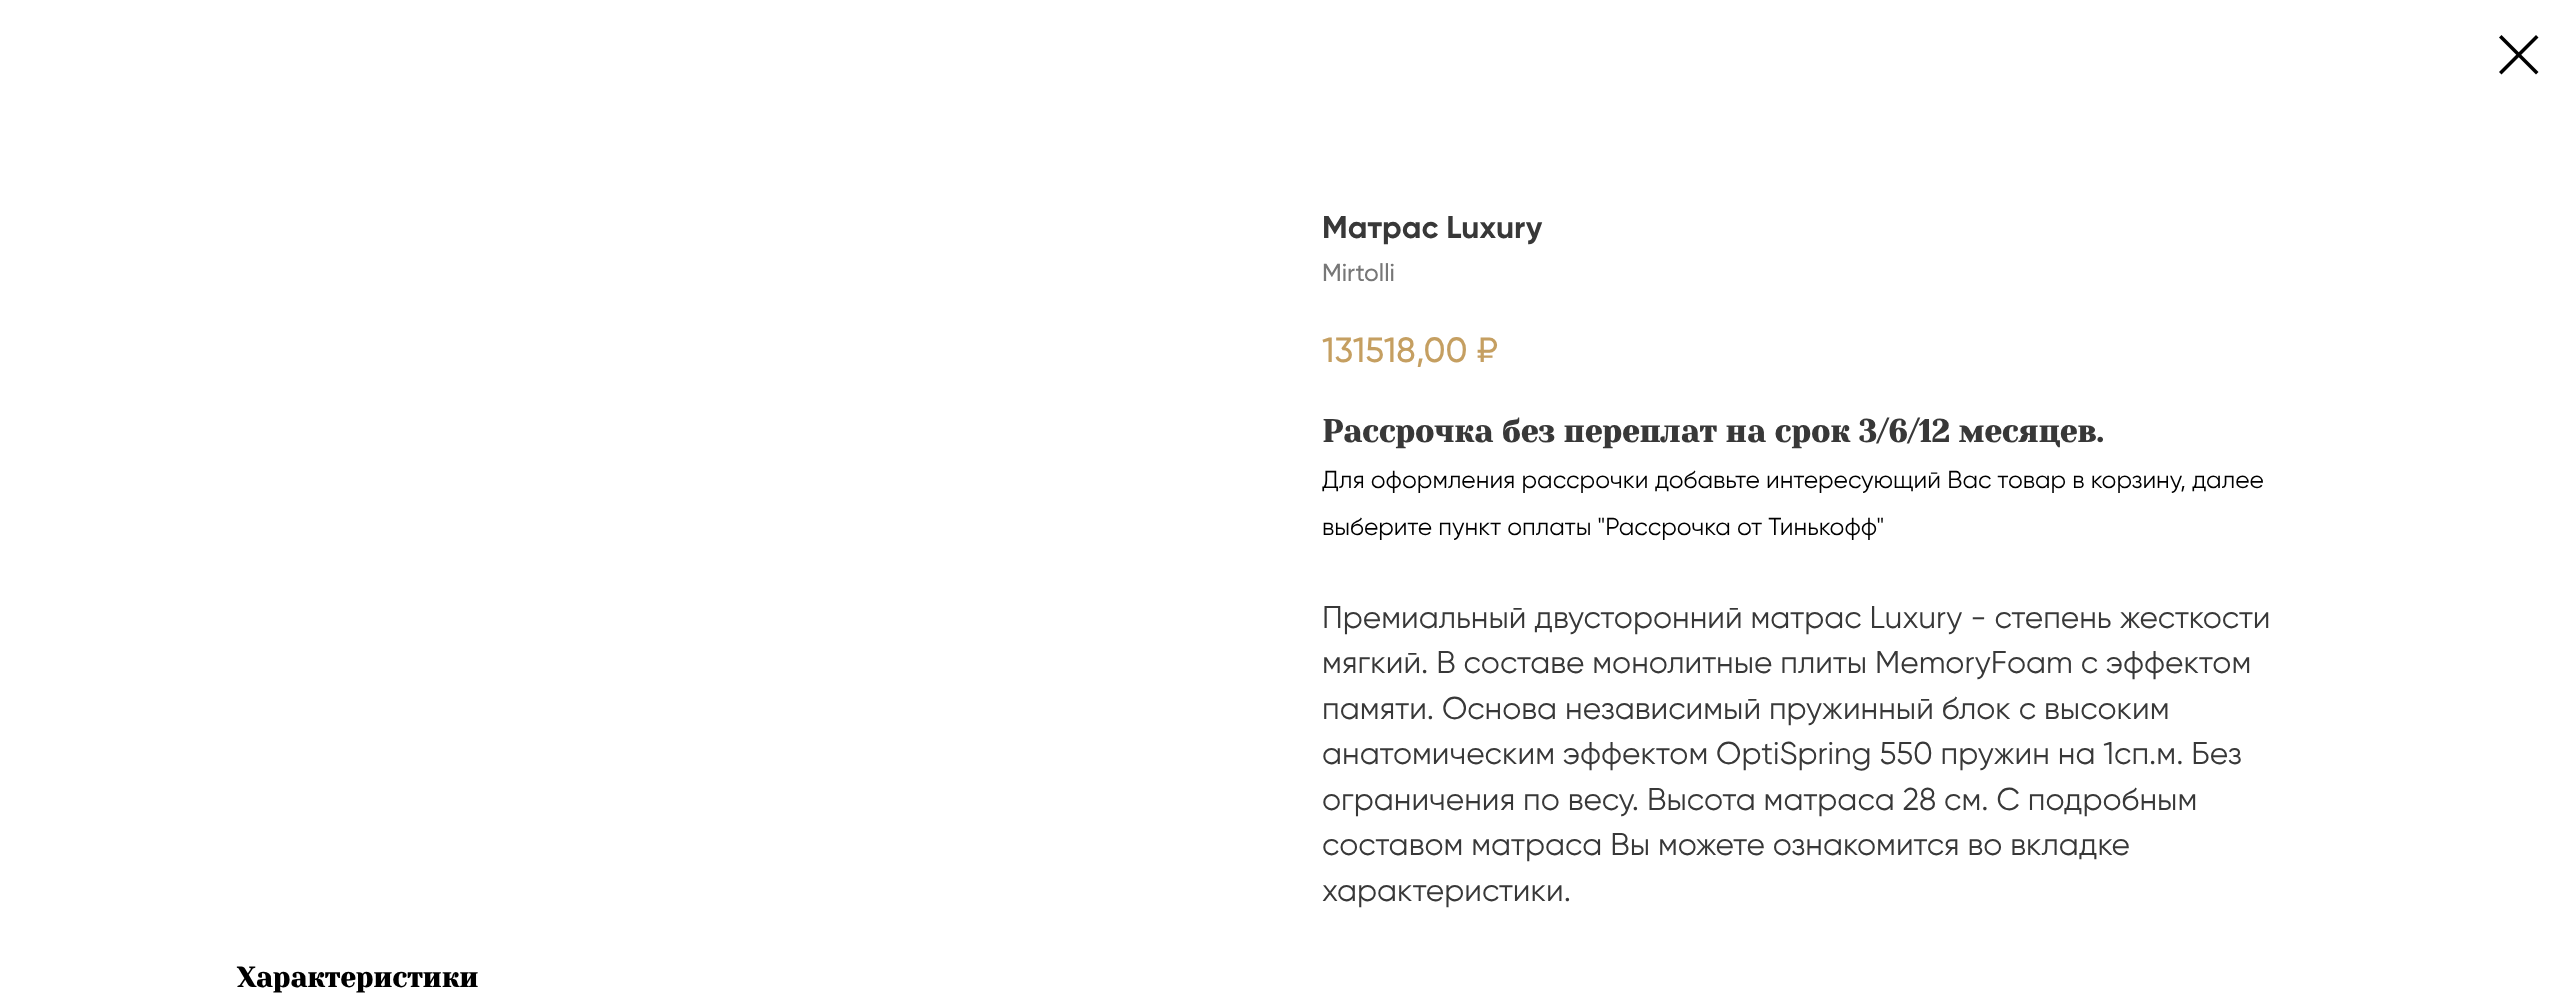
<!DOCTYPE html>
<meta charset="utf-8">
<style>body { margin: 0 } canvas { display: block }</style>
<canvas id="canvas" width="2574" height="996"></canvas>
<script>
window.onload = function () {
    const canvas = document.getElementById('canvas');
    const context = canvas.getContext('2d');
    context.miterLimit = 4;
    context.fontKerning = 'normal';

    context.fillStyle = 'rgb(255, 255, 255)';
    context.fillRect(0, 0, 2574, 996);
    context.fillStyle = 'rgb(0, 0, 0)';
    context.beginPath();
    context.moveTo(2499, 37.5);
    context.lineTo(2501.5, 35);
    context.lineTo(2538.5, 72);
    context.lineTo(2536, 74.5);
    context.closePath();
    context.fill('evenodd');
    context.beginPath();
    context.moveTo(2536, 35);
    context.lineTo(2538.5, 37.5);
    context.lineTo(2501.5, 74.5);
    context.lineTo(2499, 72);
    context.closePath();
    context.fill('evenodd');
    context.font = 'bold 31.5px Gilroy';
    context.fillStyle = 'rgb(56, 56, 56)';
    context.fillText('Матрас Luxury', 1322, 238);
    context.font = '500 24.5px Gilroy';
    context.fillStyle = 'rgb(119, 119, 119)';
    context.fillText('Mirtolli', 1322, 281);
    context.font = '500 35px Gilroy';
    context.fillStyle = 'rgb(197, 159, 97)';
    context.fillText('131518,00', 1322, 362);
    context.fillText('₽', 1477, 362);
    context.font = 'bold 31.5px Yeseva One';
    context.fillStyle = 'rgb(56, 56, 56)';
    context.fillText('Рассрочка без переплат на срок 3/6/12 месяцев.', 1322, 442);
    context.font = '24.5px Gilroy';
    context.fillStyle = 'rgb(0, 0, 0)';
    context.fillText('Для оформления рассрочки добавьте интересующий Вас товар в корзину, далее', 1322, 488);
    context.fillText('выберите пункт оплаты "Рассрочка от Тинькофф"', 1322, 535);
    context.font = '31.5px Gilroy';
    context.fillStyle = 'rgb(56, 56, 56)';
    context.fillText('Премиальный двусторонний матрас Luxury - степень жесткости', 1322, 628);
    context.fillText('мягкий. В составе монолитные плиты MemoryFoam с эффектом', 1322, 673);
    context.fillText('памяти. Основа независимый пружинный блок с высоким', 1322, 719);
    context.fillText('анатомическим эффектом OptiSpring 550 пружин на 1сп.м. Без', 1322, 764);
    context.fillText('ограничения по весу. Высота матраса 28 см. С подробным', 1322, 810);
    context.fillText('составом матраса Вы можете ознакомится во вкладке', 1322, 855);
    context.fillText('характеристики.', 1322, 901);
    context.font = 'bold 28px Yeseva One';
    context.fillStyle = 'rgb(0, 0, 0)';
    context.fillText('Характеристики', 237, 987);
};
</script>
